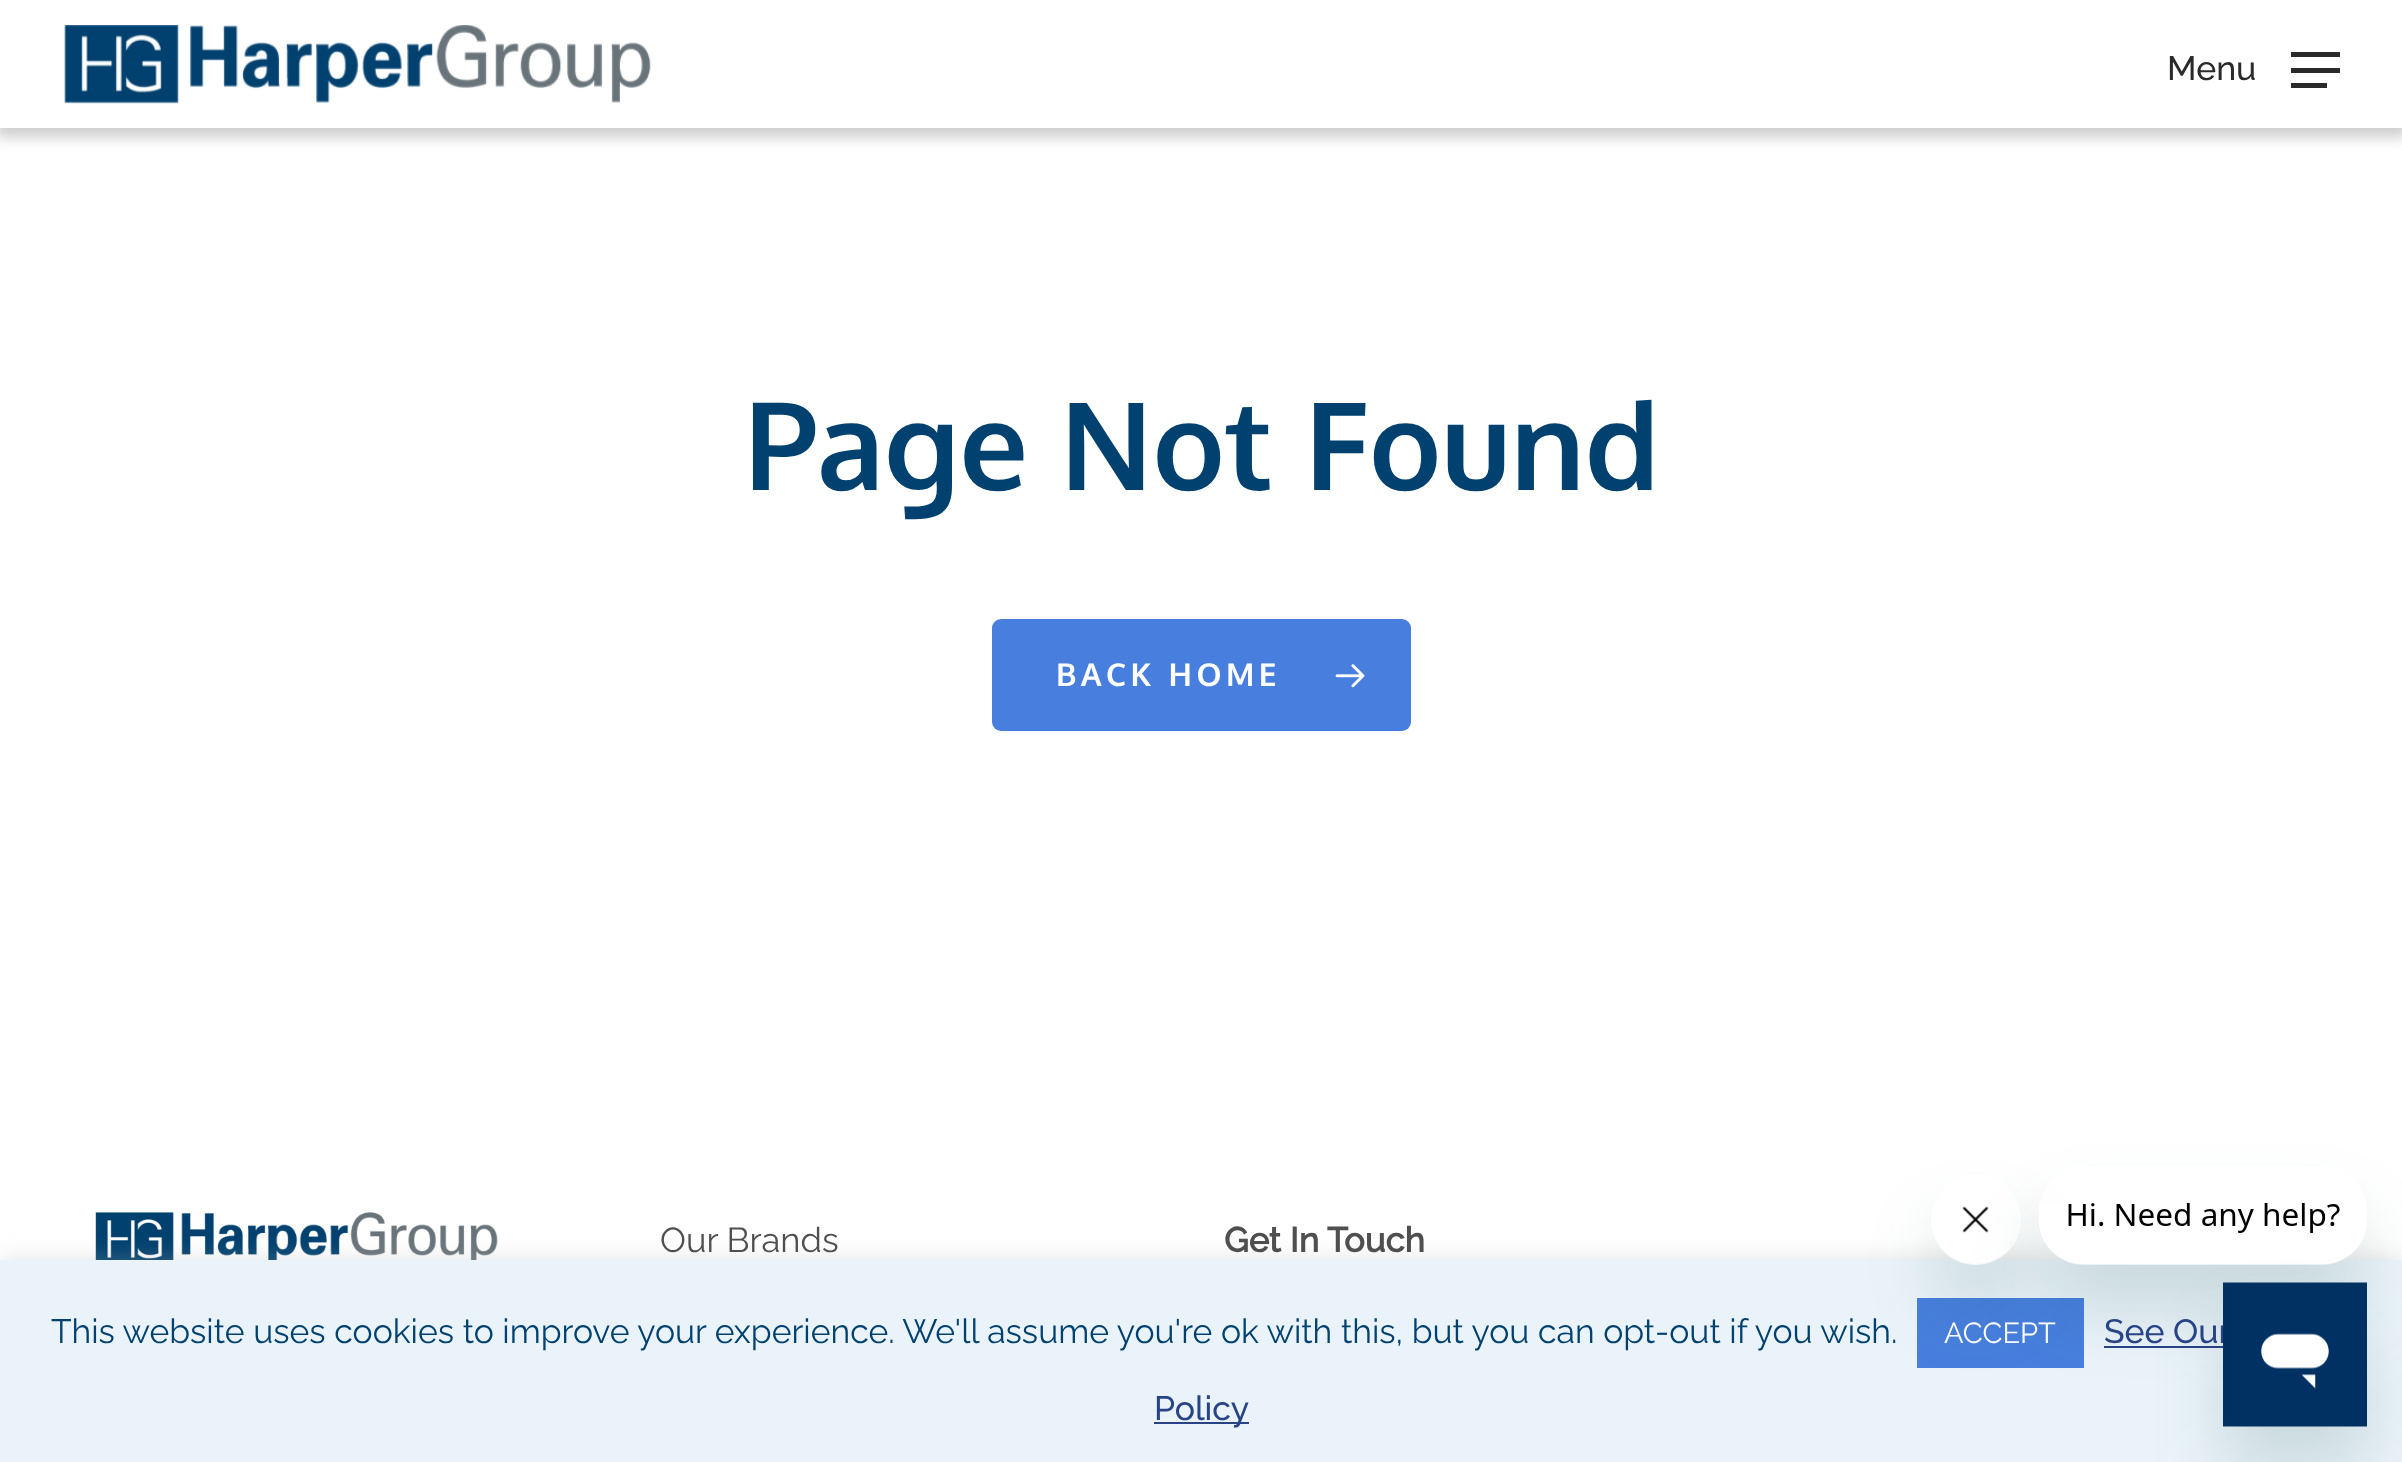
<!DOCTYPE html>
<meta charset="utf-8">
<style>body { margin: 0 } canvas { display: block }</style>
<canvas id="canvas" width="2402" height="1462"></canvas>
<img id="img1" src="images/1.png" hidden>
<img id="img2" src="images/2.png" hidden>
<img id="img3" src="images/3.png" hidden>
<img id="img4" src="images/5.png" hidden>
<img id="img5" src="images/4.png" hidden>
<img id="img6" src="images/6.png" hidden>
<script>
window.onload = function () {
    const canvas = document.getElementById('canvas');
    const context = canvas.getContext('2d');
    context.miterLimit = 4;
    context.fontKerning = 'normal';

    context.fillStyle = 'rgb(255, 255, 255)';
    context.fillRect(0, 0, 2402, 1462);
    context.fillStyle = 'rgba(0, 0, 0, 0.2)';
    context.filter = 'blur(7px)';
    context.beginPath();
    context.rect(-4, -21, 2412, 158);
    context.fill();
    context.filter = 'none';
    context.fillStyle = 'rgb(255, 255, 255)';
    context.fillRect(0, 0, 2402, 128);
    context.drawImage(document.getElementById('img1'), 64, 25, 587, 79);
    context.fillStyle = 'rgb(42, 42, 42)';
    context.fillRect(2291, 52, 49, 5);
    context.fillRect(2291, 83, 36, 5);
    context.fillRect(2291, 68, 49, 5);
    context.fillStyle = 'rgb(72, 127, 222)';
    context.beginPath();
    context.roundRect(992, 619, 419, 112, 9);
    context.fill();
    context.drawImage(document.getElementById('img2'), 1335, 664, 30, 24);
    context.drawImage(document.getElementById('img3'), 95, 1212, 403, 48);
    context.fillStyle = 'rgba(172, 171, 171, 0.3)';
    context.filter = 'blur(11px)';
    context.beginPath();
    context.rect(0, 1258, 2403, 202);
    context.fill();
    context.filter = 'none';
    context.fillStyle = 'rgb(234, 243, 249)';
    context.fillRect(0, 1260, 2402, 202);
    context.fillStyle = 'rgb(72, 127, 222)';
    context.fillRect(1917, 1298, 167, 70);
    context.fillStyle = 'rgb(40, 68, 135)';
    context.fillRect(2104, 1346, 119, 2);
    context.save();
    context.beginPath();
    context.moveTo(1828, 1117);
    context.lineTo(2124, 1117);
    context.lineTo(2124, 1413);
    context.lineTo(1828, 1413);
    context.closePath();
    context.moveTo(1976, 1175);
    context.bezierCurveTo(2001, 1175, 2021, 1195, 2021, 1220);
    context.bezierCurveTo(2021, 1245, 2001, 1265, 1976, 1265);
    context.bezierCurveTo(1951, 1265, 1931, 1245, 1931, 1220);
    context.bezierCurveTo(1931, 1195, 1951, 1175, 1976, 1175);
    context.closePath();
    context.clip('evenodd');
    context.fillStyle = 'rgba(23, 73, 77, 0.15)';
    context.filter = 'blur(34px)';
    context.beginPath();
    context.roundRect(1931, 1220, 90, 90, 45);
    context.fill();
    context.filter = 'none';
    context.restore();
    context.drawImage(document.getElementById('img4'), 1940, 1206, 70, 59);
    context.save();
    context.beginPath();
    context.moveTo(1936, 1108);
    context.lineTo(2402, 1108);
    context.lineTo(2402, 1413);
    context.lineTo(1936, 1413);
    context.closePath();
    context.moveTo(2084, 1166);
    context.lineTo(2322, 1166);
    context.bezierCurveTo(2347, 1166, 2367, 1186, 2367, 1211);
    context.lineTo(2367, 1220);
    context.bezierCurveTo(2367, 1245, 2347, 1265, 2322, 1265);
    context.lineTo(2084, 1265);
    context.bezierCurveTo(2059, 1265, 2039, 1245, 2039, 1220);
    context.lineTo(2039, 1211);
    context.bezierCurveTo(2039, 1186, 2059, 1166, 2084, 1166);
    context.closePath();
    context.clip('evenodd');
    context.fillStyle = 'rgba(23, 73, 77, 0.15)';
    context.filter = 'blur(34px)';
    context.beginPath();
    context.roundRect(2039, 1211, 328, 99, 45);
    context.fill();
    context.filter = 'none';
    context.restore();
    context.drawImage(document.getElementById('img5'), 2039, 1203, 320, 61);
    context.fillStyle = 'rgba(23, 73, 77, 0.15)';
    context.filter = 'blur(34px)';
    context.beginPath();
    context.rect(2223, 1328, 144, 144);
    context.fill();
    context.filter = 'none';
    context.fillStyle = 'rgb(40, 68, 135)';
    context.fillRect(1154, 1422, 95, 2);
    context.font = '500 33.75px Raleway';
    context.fillStyle = 'rgb(42, 42, 42)';
    context.fillText('Menu', 2167, 80);
    context.font = 'bold 121.5px Oxygen';
    context.fillStyle = 'rgb(0, 65, 111)';
    context.fillText('Page Not Found', 744, 490);
    context.letterSpacing = '4.5px';
    context.font = 'bold 31.5px Oxygen';
    context.fillStyle = 'rgb(255, 255, 255)';
    context.fillText('BACK HOME', 1056, 686);
    context.letterSpacing = '0px';
    context.font = '34.5px Raleway';
    context.fillStyle = 'rgb(79, 79, 79)';
    context.fillText('Our Brands', 660, 1252);
    context.font = 'bold 34.5px Raleway';
    context.fillText('Get In Touch', 1224, 1252);
    context.font = '33.75px Raleway';
    context.fillStyle = 'rgb(0, 65, 111)';
    context.fillText('This website uses cookies to improve your experience. We\'ll assume you\'re ok with this, but you can opt-out if you wish.', 51, 1343);
    context.font = '29px Raleway';
    context.fillStyle = 'rgb(255, 255, 255)';
    context.fillText('ACCEPT', 1944, 1343);
    context.font = '500 33.75px Raleway';
    context.fillStyle = 'rgb(40, 68, 135)';
    context.fillText('See Our', 2104, 1343);
    context.drawImage(document.getElementById('img6'), 2223, 1282, 144, 145);
    context.fillText('Policy', 1154, 1420);
};
</script>
